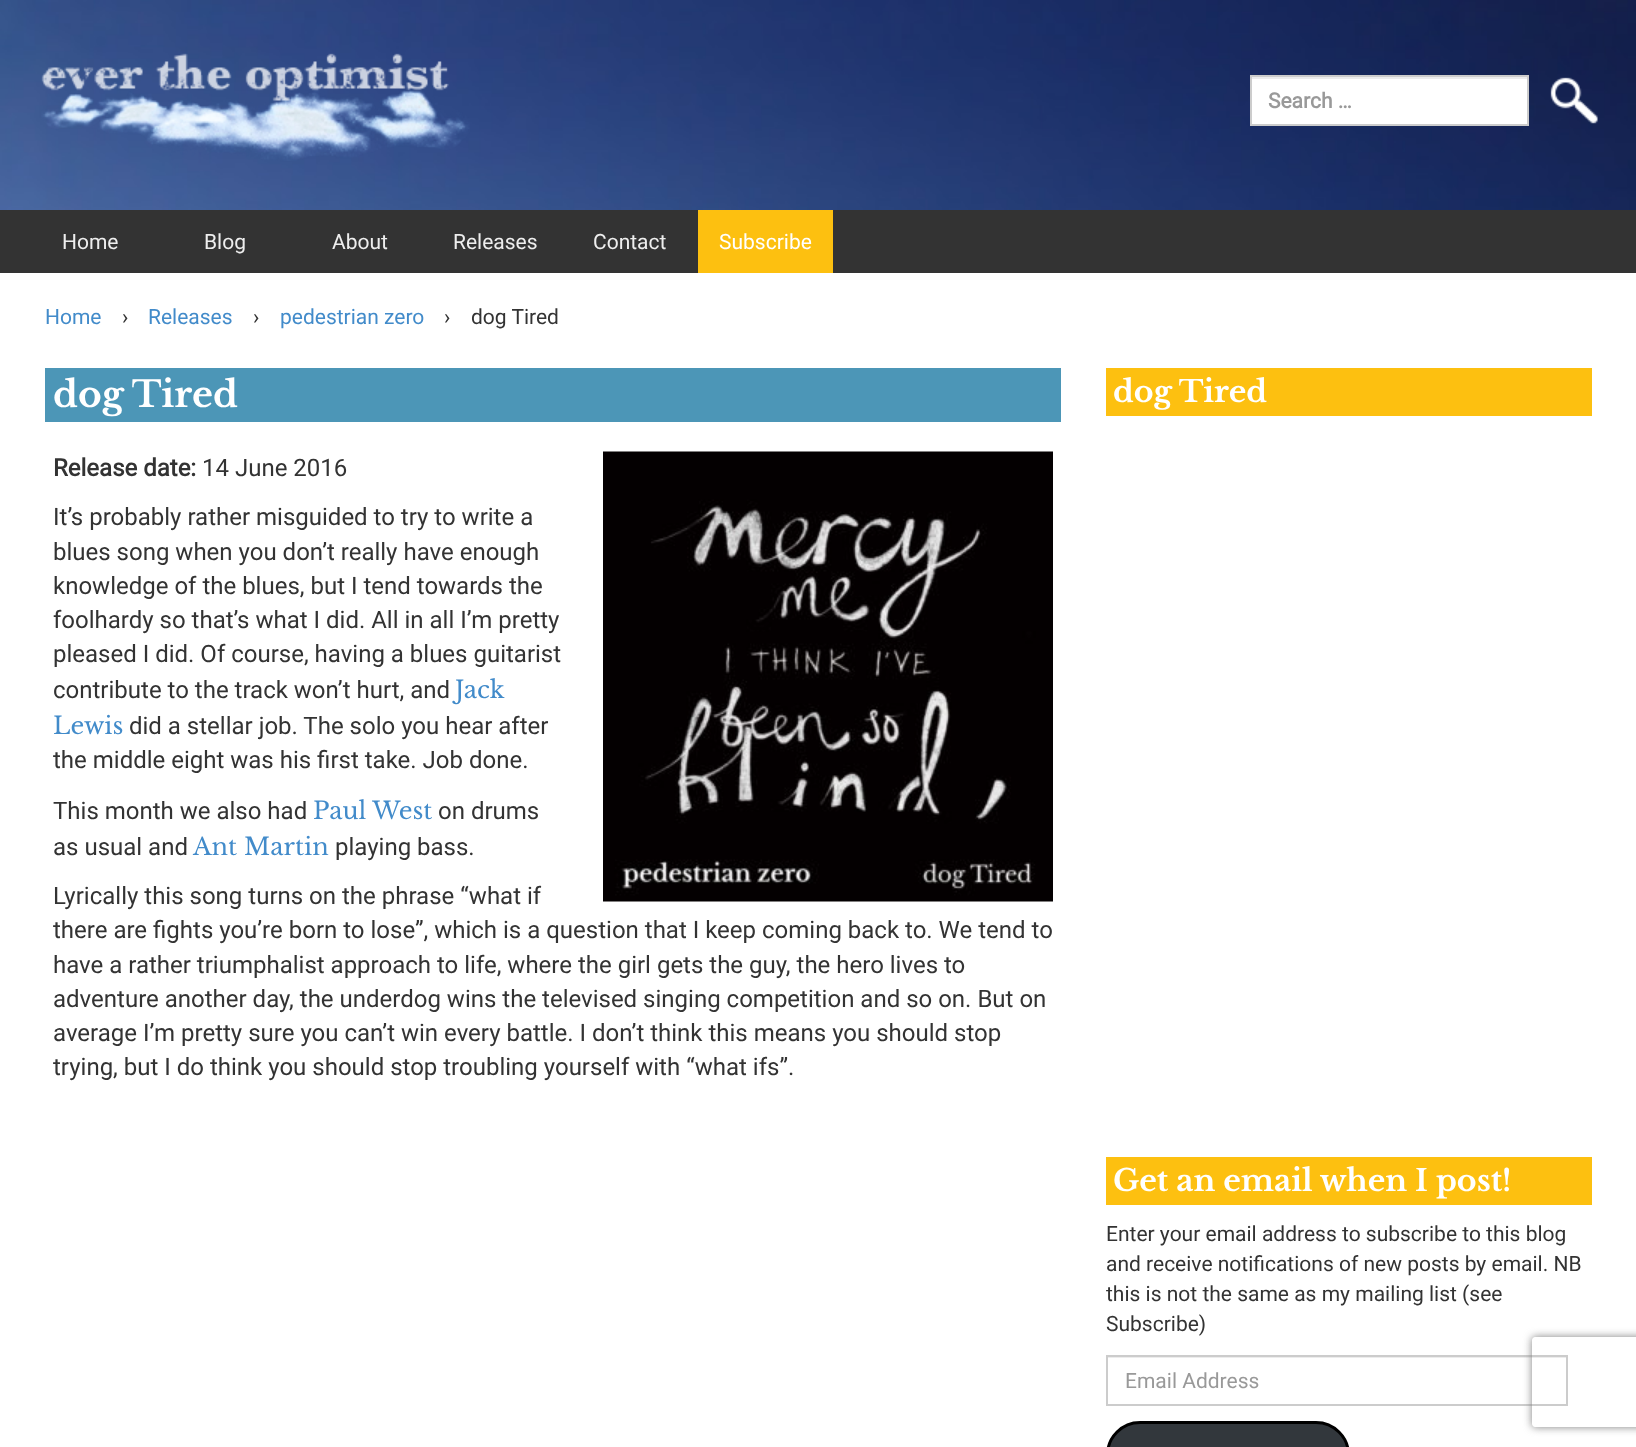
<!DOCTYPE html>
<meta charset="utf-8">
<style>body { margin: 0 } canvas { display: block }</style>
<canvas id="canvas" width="1636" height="1447"></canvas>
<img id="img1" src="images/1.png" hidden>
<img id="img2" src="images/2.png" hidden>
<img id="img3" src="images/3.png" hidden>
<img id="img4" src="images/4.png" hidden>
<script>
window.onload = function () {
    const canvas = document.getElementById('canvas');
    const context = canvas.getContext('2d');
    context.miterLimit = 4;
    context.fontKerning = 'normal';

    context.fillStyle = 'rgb(255, 255, 255)';
    context.fillRect(0, 0, 1636, 1447);
    context.drawImage(document.getElementById('img1'), 0, 0, 1636, 210);
    context.drawImage(document.getElementById('img2'), 41, 53, 429, 108);
    context.fillRect(1252, 79, 275, 45);
    context.fillStyle = 'rgb(236, 236, 236)';
    context.fillRect(1251, 77, 276, 2);
    context.strokeStyle = 'rgb(204, 204, 204)';
    context.lineWidth = 2;
    context.strokeRect(1251, 76, 277, 49);
    context.drawImage(document.getElementById('img3'), 1550, 77, 48, 47);
    context.fillStyle = 'rgb(51, 51, 51)';
    context.fillRect(0, 210, 1636, 63);
    context.fillStyle = 'rgb(253, 192, 16)';
    context.fillRect(698, 210, 135, 63);
    context.fillStyle = 'rgb(76, 150, 183)';
    context.fillRect(45, 368, 1016, 54);
    context.drawImage(document.getElementById('img4'), 603, 451, 450, 451);
    context.fillStyle = 'rgb(253, 192, 16)';
    context.fillRect(1106, 368, 486, 48);
    context.fillRect(1106, 1157, 486, 48);
    context.fillStyle = 'rgb(236, 236, 236)';
    context.fillRect(1107, 1357, 459, 1);
    context.strokeRect(1107, 1356, 460, 49);
    context.fillStyle = 'rgb(50, 55, 60)';
    context.beginPath();
    context.roundRect(1107.5, 1422.5, 241, 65, 37.5);
    context.fill();
    context.strokeStyle = 'rgb(0, 0, 0)';
    context.lineWidth = 3;
    context.stroke();
    context.save();
    context.beginPath();
    context.moveTo(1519, 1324);
    context.lineTo(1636, 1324);
    context.lineTo(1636, 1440);
    context.lineTo(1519, 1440);
    context.closePath();
    context.moveTo(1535, 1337);
    context.lineTo(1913, 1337);
    context.bezierCurveTo(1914.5, 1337, 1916, 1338.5, 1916, 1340);
    context.lineTo(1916, 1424);
    context.bezierCurveTo(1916, 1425.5, 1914.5, 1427, 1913, 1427);
    context.lineTo(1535, 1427);
    context.bezierCurveTo(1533.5, 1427, 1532, 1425.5, 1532, 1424);
    context.lineTo(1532, 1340);
    context.bezierCurveTo(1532, 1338.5, 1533.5, 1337, 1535, 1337);
    context.closePath();
    context.clip('evenodd');
    context.fillStyle = 'rgb(128, 128, 128)';
    context.filter = 'blur(4px)';
    context.beginPath();
    context.roundRect(1532, 1337, 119, 90, 3);
    context.fill();
    context.filter = 'none';
    context.restore();
    context.font = 'bold 21px Roboto';
    context.fillStyle = 'rgb(153, 153, 153)';
    context.fillText('Search …', 1268, 108);
    context.font = '21px Roboto';
    context.fillStyle = 'rgb(238, 238, 238)';
    context.fillText('Home', 62, 249);
    context.fillText('Blog', 204, 249);
    context.fillText('About', 332, 249);
    context.fillText('Releases', 453, 249);
    context.fillText('Contact', 593, 249);
    context.fillStyle = 'rgb(255, 255, 255)';
    context.fillText('Subscribe', 719, 249);
    context.fillStyle = 'rgb(66, 139, 202)';
    context.fillText('Home', 45, 324);
    context.fillStyle = 'rgb(51, 51, 51)';
    context.fillText('›', 122, 324);
    context.fillStyle = 'rgb(66, 139, 202)';
    context.fillText('Releases', 148, 324);
    context.fillStyle = 'rgb(51, 51, 51)';
    context.fillText('›', 253, 324);
    context.fillStyle = 'rgb(66, 139, 202)';
    context.fillText('pedestrian zero', 280, 324);
    context.fillStyle = 'rgb(51, 51, 51)';
    context.fillText('›', 444, 324);
    context.fillText('dog Tired', 471, 324);
    context.font = 'bold 36px Libre Baskerville';
    context.fillStyle = 'rgb(255, 255, 255)';
    context.fillText('dog Tired', 53, 407);
    context.font = 'bold 24px Roboto';
    context.fillStyle = 'rgb(51, 51, 51)';
    context.fillText('Release date:', 53, 476);
    context.font = '24px Roboto';
    context.fillText('14 June 2016', 202, 476);
    context.fillText('It’s probably rather misguided to try to write a', 53, 525);
    context.fillText('blues song when you don’t really have enough', 53, 560);
    context.fillText('knowledge of the blues, but I tend towards the', 53, 594);
    context.fillText('foolhardy so that’s what I did. All in all I’m pretty', 53, 628);
    context.fillText('pleased I did. Of course, having a blues guitarist', 53, 662);
    context.fillText('contribute to the track won’t hurt, and', 53, 698);
    context.font = '24px Libre Baskerville';
    context.fillStyle = 'rgb(66, 139, 202)';
    context.fillText('Jack', 455, 698);
    context.fillText('Lewis', 53, 734);
    context.font = '24px Roboto';
    context.fillStyle = 'rgb(51, 51, 51)';
    context.fillText('did a stellar job. The solo you hear after', 129, 734);
    context.fillText('the middle eight was his first take. Job done.', 53, 768);
    context.fillText('This month we also had', 53, 819);
    context.font = '24px Libre Baskerville';
    context.fillStyle = 'rgb(66, 139, 202)';
    context.fillText('Paul West', 313, 819);
    context.font = '24px Roboto';
    context.fillStyle = 'rgb(51, 51, 51)';
    context.fillText('on drums', 438, 819);
    context.fillText('as usual and', 53, 855);
    context.font = '24px Libre Baskerville';
    context.fillStyle = 'rgb(66, 139, 202)';
    context.fillText('Ant Martin', 193, 855);
    context.font = '24px Roboto';
    context.fillStyle = 'rgb(51, 51, 51)';
    context.fillText('playing bass.', 335, 855);
    context.fillText('Lyrically this song turns on the phrase “what if', 53, 904);
    context.fillText('there are fights you’re born to lose”, which is a question that I keep coming back to. We tend to', 53, 938);
    context.fillText('have a rather triumphalist approach to life, where the girl gets the guy, the hero lives to', 53, 973);
    context.fillText('adventure another day, the underdog wins the televised singing competition and so on. But on', 53, 1007);
    context.fillText('average I’m pretty sure you can’t win every battle. I don’t think this means you should stop', 53, 1041);
    context.fillText('trying, but I do think you should stop troubling yourself with “what ifs”.', 53, 1075);
    context.font = 'bold 30px Libre Baskerville';
    context.fillStyle = 'rgb(255, 255, 255)';
    context.fillText('dog Tired', 1113, 402);
    context.fillText('Get an email when I post!', 1113, 1191);
    context.font = '21px Roboto';
    context.fillStyle = 'rgb(51, 51, 51)';
    context.fillText('Enter your email address to subscribe to this blog', 1106, 1241);
    context.fillText('and receive notifications of new posts by email. NB', 1106, 1271);
    context.fillText('this is not the same as my mailing list (see', 1106, 1301);
    context.fillText('Subscribe)', 1106, 1331);
    context.fillStyle = 'rgb(153, 153, 153)';
    context.fillText('Email Address', 1125, 1388);
};
</script>
